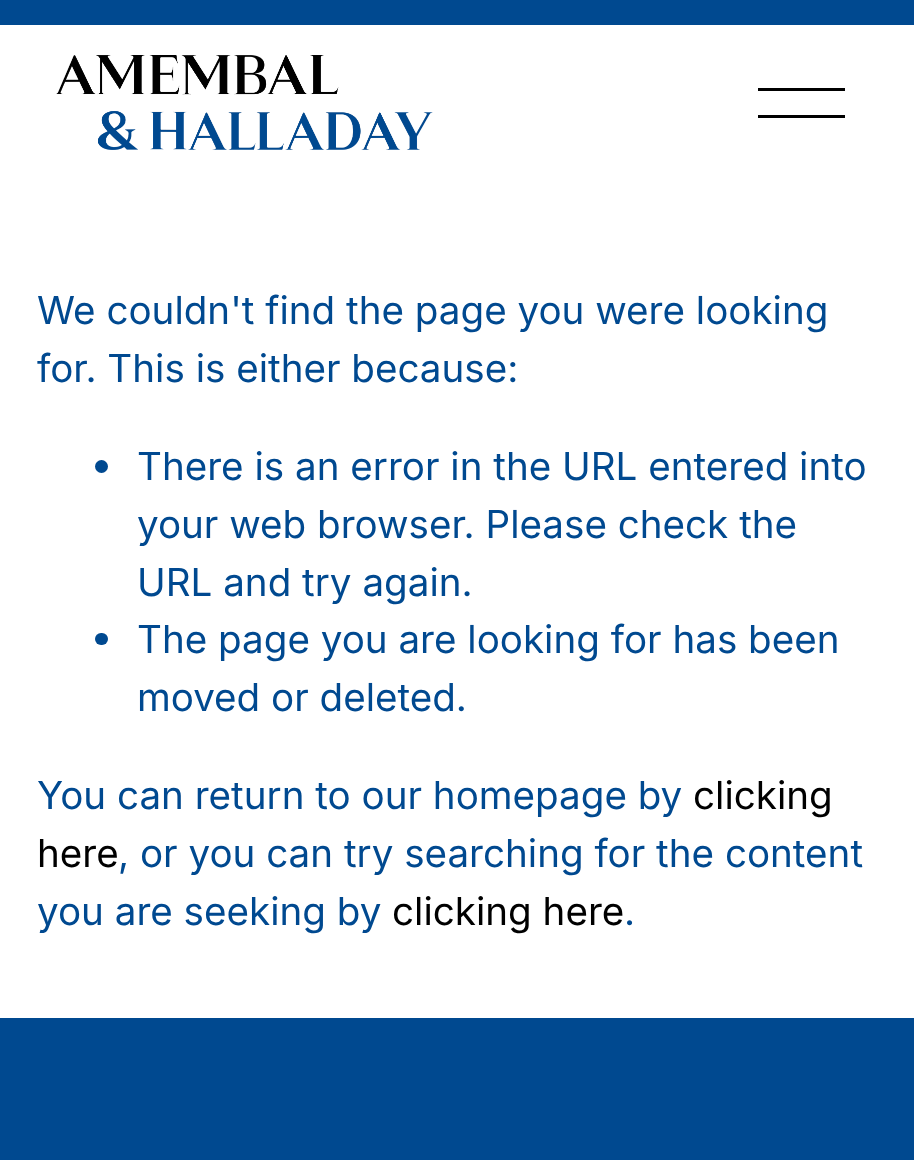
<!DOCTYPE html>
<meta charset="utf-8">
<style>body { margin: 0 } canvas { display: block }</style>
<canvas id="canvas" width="914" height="1160"></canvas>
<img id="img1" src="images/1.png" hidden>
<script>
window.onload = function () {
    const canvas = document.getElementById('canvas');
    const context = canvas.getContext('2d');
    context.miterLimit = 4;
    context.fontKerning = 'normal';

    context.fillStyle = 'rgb(255, 255, 255)';
    context.fillRect(0, 0, 914, 1160);
    context.fillStyle = 'rgb(0, 73, 144)';
    context.fillRect(0, 0, 914, 25);
    context.drawImage(document.getElementById('img1'), 56, 55, 377, 95);
    context.fillStyle = 'rgb(0, 0, 0)';
    context.fillRect(758, 88, 87, 3);
    context.fillRect(758, 115, 87, 3);
    context.fillStyle = 'rgb(0, 73, 144)';
    context.beginPath();
    context.arc(101.5, 466.5, 6.5, 0, 2 * Math.PI);
    context.fill();
    context.beginPath();
    context.roundRect(95, 633, 13, 12, 6);
    context.fill();
    context.fillRect(0, 1018, 914, 142);
    context.font = '38.6px Inter';
    context.fillText('We couldn\'t find the page you were looking', 37, 324);
    context.fillText('for. This is either because:', 37, 382);
    context.fillText('There is an error in the URL entered into', 137, 480);
    context.fillText('your web browser. Please check the', 137, 538);
    context.fillText('URL and try again.', 137, 596);
    context.fillText('The page you are looking for has been', 137, 653);
    context.fillText('moved or deleted.', 137, 711);
    context.fillText('You can return to our homepage by', 37, 809);
    context.fillStyle = 'rgb(0, 0, 0)';
    context.fillText('clicking', 693, 809);
    context.fillText('here', 37, 867);
    context.fillStyle = 'rgb(0, 73, 144)';
    context.fillText(', or you can try searching for the content', 118, 867);
    context.fillText('you are seeking by', 37, 925);
    context.fillStyle = 'rgb(0, 0, 0)';
    context.fillText('clicking here', 392, 925);
    context.fillStyle = 'rgb(0, 73, 144)';
    context.fillText('.', 624, 925);
};
</script>
